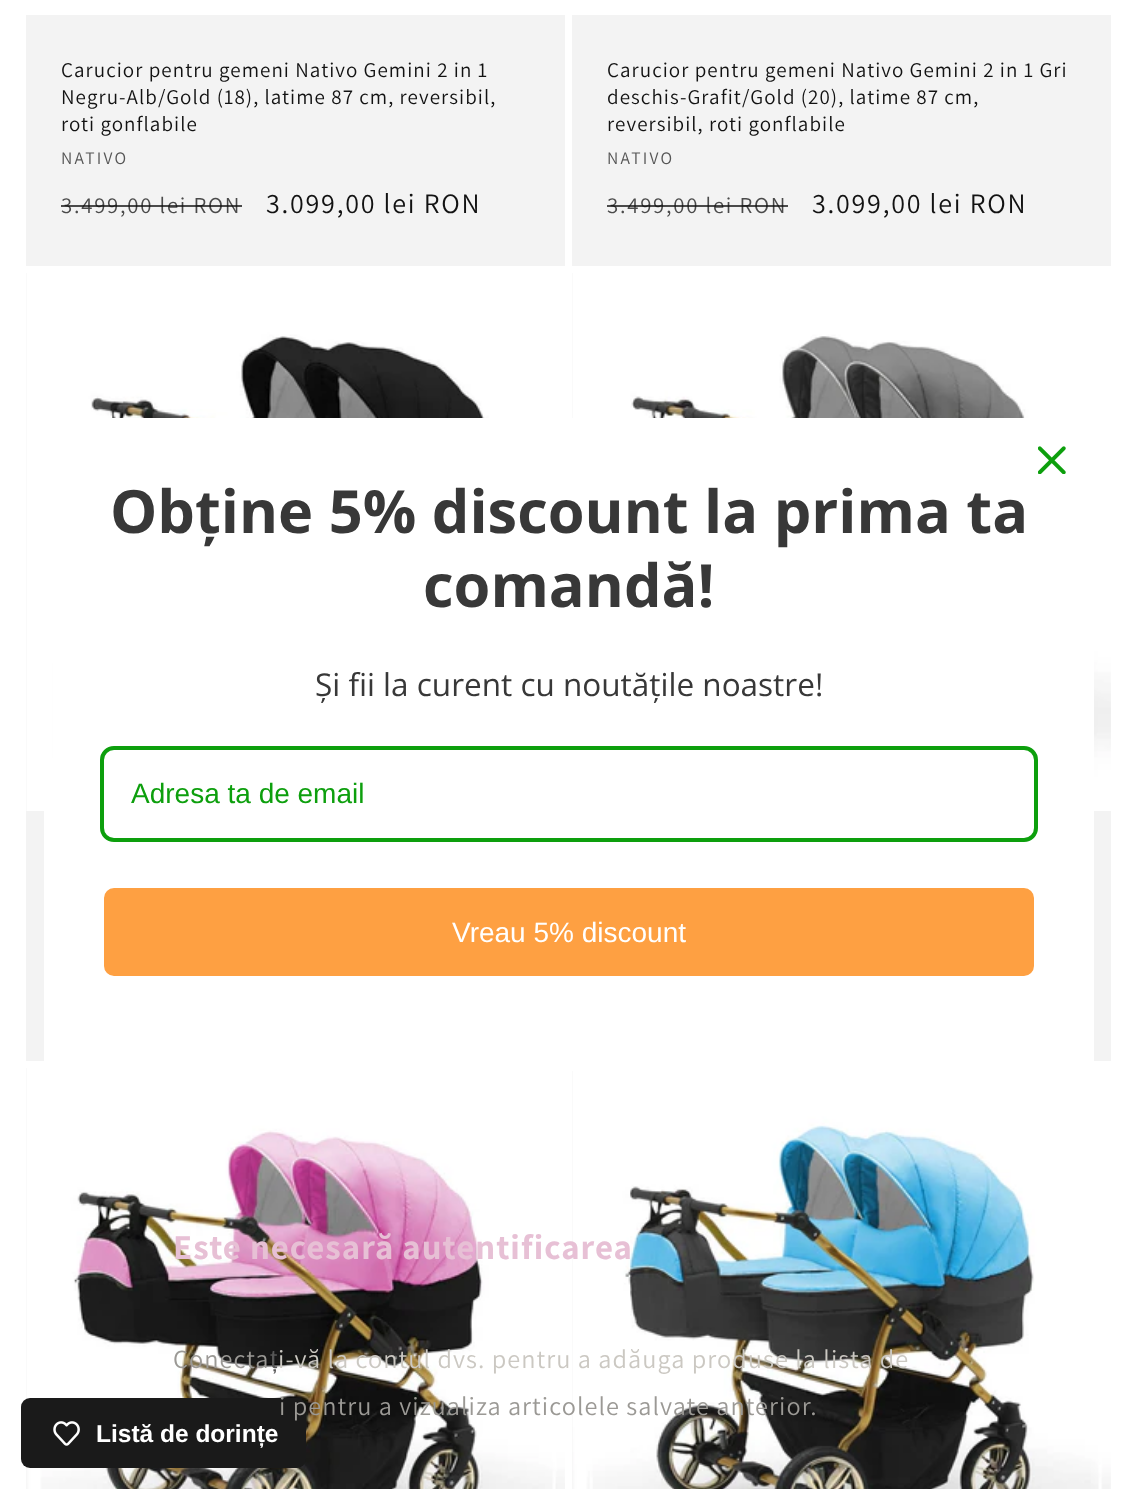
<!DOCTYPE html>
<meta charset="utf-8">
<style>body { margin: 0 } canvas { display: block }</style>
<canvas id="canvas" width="1137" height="1489"></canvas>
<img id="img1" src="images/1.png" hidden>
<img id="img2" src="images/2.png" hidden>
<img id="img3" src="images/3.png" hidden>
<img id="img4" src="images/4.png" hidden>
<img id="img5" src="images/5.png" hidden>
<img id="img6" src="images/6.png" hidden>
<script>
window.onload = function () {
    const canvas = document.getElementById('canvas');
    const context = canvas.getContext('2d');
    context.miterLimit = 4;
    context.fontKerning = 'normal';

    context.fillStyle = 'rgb(255, 255, 255)';
    context.fillRect(0, 0, 1137, 1489);
    context.fillStyle = 'rgb(243, 243, 243)';
    context.fillRect(26, 15, 539, 251);
    context.fillRect(572, 15, 539, 251);
    context.fillRect(26, 273, 18, 788);
    context.drawImage(document.getElementById('img1'), 26, 273, 539, 538);
    context.fillRect(572, 273, 539, 788);
    context.drawImage(document.getElementById('img2'), 572, 273, 539, 538);
    context.fillRect(26, 1068, 1, 421);
    context.drawImage(document.getElementById('img3'), 26, 1068, 539, 421);
    context.fillRect(572, 1071, 1, 418);
    context.drawImage(document.getElementById('img4'), 572, 1068, 539, 421);
    context.fillStyle = 'rgb(255, 255, 255)';
    context.fillRect(53, 418, 1041, 643);
    context.drawImage(document.getElementById('img5'), 1038, 446, 28, 28);
    context.beginPath();
    context.roundRect(102, 748, 934, 92, 12);
    context.strokeStyle = 'rgb(13, 159, 13)';
    context.lineWidth = 4;
    context.stroke();
    context.fillStyle = 'rgb(254, 160, 66)';
    context.beginPath();
    context.roundRect(102, 886, 934, 92, 12);
    context.fill();
    context.strokeStyle = 'rgb(255, 255, 255)';
    context.stroke();
    context.fillStyle = 'rgb(26, 26, 26)';
    context.beginPath();
    context.roundRect(21, 1398, 285, 70, 9);
    context.fill();
    context.drawImage(document.getElementById('img6'), 53, 1421, 27, 25);
    context.letterSpacing = '1.05px';
    context.font = '21px Assistant';
    context.fillStyle = 'rgb(18, 18, 18)';
    context.fillText('Carucior pentru gemeni Nativo Gemini 2 in 1', 61, 77);
    context.fillText('Negru-Alb/Gold (18), latime 87 cm, reversibil,', 61, 104);
    context.fillText('roti gonflabile', 61, 131);
    context.letterSpacing = '2.25px';
    context.font = '17.5px Assistant';
    context.fillStyle = 'rgb(86, 86, 86)';
    context.fillText('NATIVO', 61, 164);
    context.letterSpacing = '1.75px';
    context.font = '22.75px Assistant';
    context.fillStyle = 'rgb(74, 74, 74)';
    context.fillText('3.499,00 lei RON', 61, 213);
    context.fillStyle = 'rgba(18, 18, 18, 0.75)';
    context.fillRect(61, 205, 181, 2);
    context.font = '28px Assistant';
    context.fillStyle = 'rgb(18, 18, 18)';
    context.fillText('3.099,00 lei RON', 266, 213);
    context.letterSpacing = '1.05px';
    context.font = '21px Assistant';
    context.fillText('Carucior pentru gemeni Nativo Gemini 2 in 1 Gri', 607, 77);
    context.fillText('deschis-Grafit/Gold (20), latime 87 cm,', 607, 104);
    context.fillText('reversibil, roti gonflabile', 607, 131);
    context.letterSpacing = '2.25px';
    context.font = '17.5px Assistant';
    context.fillStyle = 'rgb(86, 86, 86)';
    context.fillText('NATIVO', 607, 164);
    context.letterSpacing = '1.75px';
    context.font = '22.75px Assistant';
    context.fillStyle = 'rgb(74, 74, 74)';
    context.fillText('3.499,00 lei RON', 607, 213);
    context.fillStyle = 'rgba(18, 18, 18, 0.75)';
    context.fillRect(607, 205, 181, 2);
    context.font = '28px Assistant';
    context.fillStyle = 'rgb(18, 18, 18)';
    context.fillText('3.099,00 lei RON', 812, 213);
    context.letterSpacing = '0px';
    context.font = 'bold 59.5px Open Sans';
    context.fillStyle = 'rgb(56, 56, 56)';
    context.fillText('Obține 5% discount la prima ta', 110, 533);
    context.fillText('comandă!', 423, 607);
    context.font = '31.5px Open Sans';
    context.fillText('Și fii la curent cu noutățile noastre!', 315, 696);
    context.font = '28px Liberation Sans';
    context.fillStyle = 'rgb(13, 159, 13)';
    context.fillText('Adresa ta de email', 131, 803);
    context.fillStyle = 'rgb(255, 255, 255)';
    context.fillText('Vreau 5% discount', 452, 942);
    context.letterSpacing = '1.05px';
    context.font = 'bold 35px Assistant';
    context.fillStyle = 'rgb(231, 192, 213)';
    context.fillText('Este necesară autentificarea', 173, 1259);
    context.font = '26.25px Assistant';
    context.fillStyle = 'rgb(155, 153, 149)';
    context.fillText('Conecta', 173, 1368);
    context.font = '26.25px Liberation Sans';
    context.fillStyle = 'rgb(86, 86, 86)';
    context.fillText('ț', 270, 1368);
    context.font = '26.25px Assistant';
    context.fillStyle = 'rgb(203, 200, 194)';
    context.fillText('i-vă la contul dvs. pentru a adăuga produse la lista de', 278, 1368);
    context.fillStyle = 'rgb(155, 153, 149)';
    context.fillText('i pentru a vizualiza articolele salvate anterior.', 279, 1415);
    context.letterSpacing = '0px';
    context.font = 'bold 24.5px Liberation Sans';
    context.fillStyle = 'rgb(255, 255, 255)';
    context.fillText('Listă de dorințe', 96, 1442);
};
</script>
